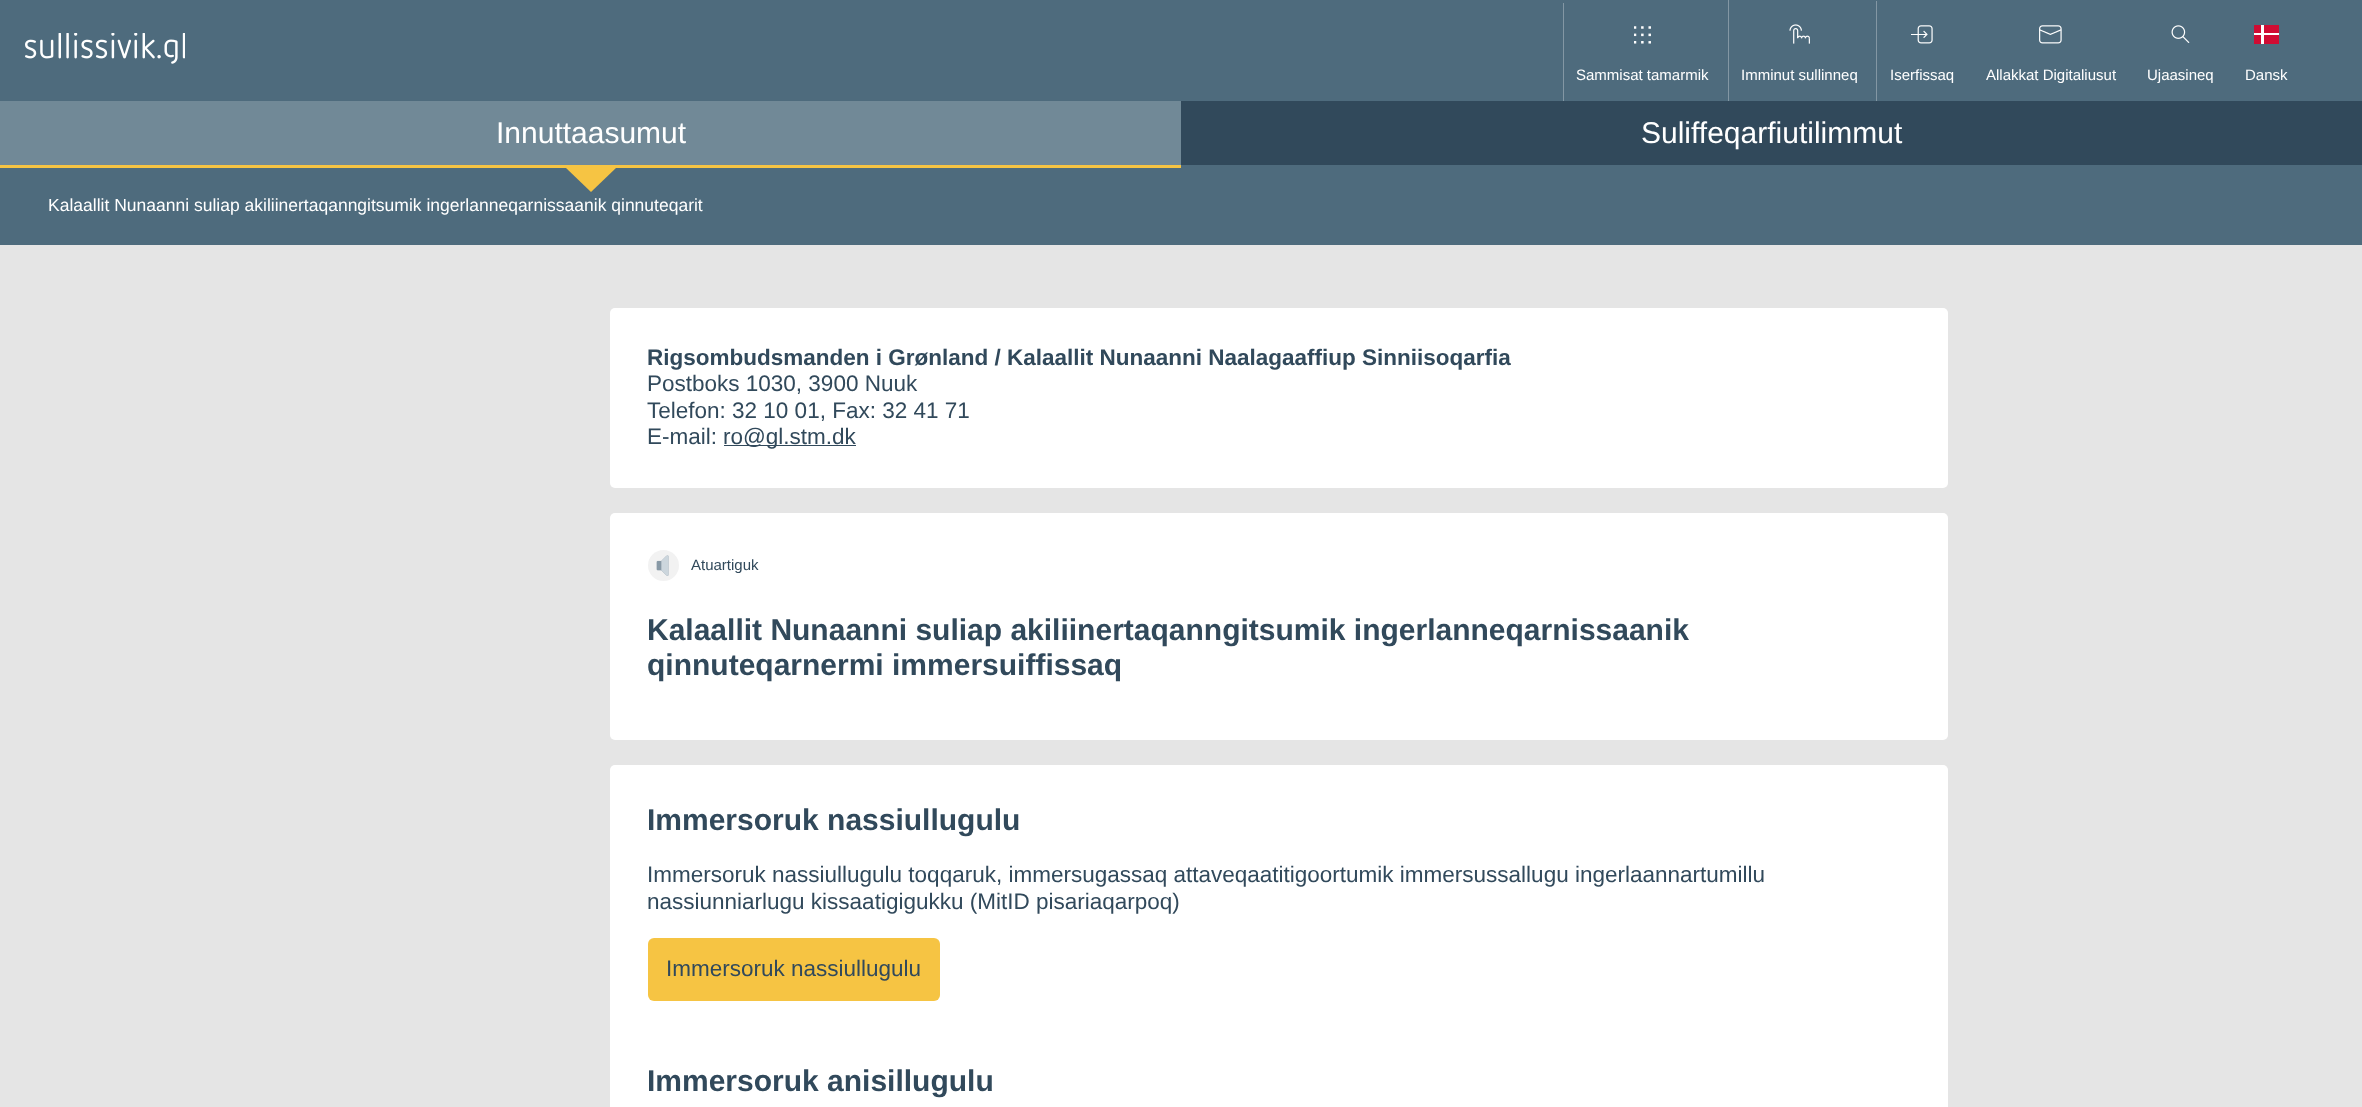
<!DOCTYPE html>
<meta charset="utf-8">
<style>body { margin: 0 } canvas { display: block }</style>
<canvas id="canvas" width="2362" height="1107"></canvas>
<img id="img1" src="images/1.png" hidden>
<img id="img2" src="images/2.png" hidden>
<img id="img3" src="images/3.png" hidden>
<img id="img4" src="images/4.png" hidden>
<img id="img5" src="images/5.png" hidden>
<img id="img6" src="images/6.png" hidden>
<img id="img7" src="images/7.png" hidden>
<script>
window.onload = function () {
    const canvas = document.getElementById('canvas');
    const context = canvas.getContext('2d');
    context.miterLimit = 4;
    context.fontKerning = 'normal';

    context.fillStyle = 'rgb(229, 229, 229)';
    context.fillRect(0, 0, 2362, 1107);
    context.fillStyle = 'rgb(78, 107, 125)';
    context.fillRect(0, 0, 2362, 101);
    context.drawImage(document.getElementById('img1'), 25, 33, 160, 31);
    context.fillStyle = 'rgb(131, 151, 164)';
    context.fillRect(1563, 3, 1, 98);
    context.drawImage(document.getElementById('img2'), 1634, 26, 17, 18);
    context.fillRect(1728, 0, 1, 101);
    context.drawImage(document.getElementById('img3'), 1789, 24, 21, 20);
    context.fillRect(1876, 1, 1, 100);
    context.drawImage(document.getElementById('img4'), 1911, 25, 22, 19);
    context.drawImage(document.getElementById('img5'), 2039, 25, 23, 19);
    context.drawImage(document.getElementById('img6'), 2171, 25, 19, 18);
    context.fillStyle = 'rgb(208, 12, 51)';
    context.fillRect(2254, 25, 25, 19);
    context.fillStyle = 'rgb(255, 255, 255)';
    context.fillRect(2261, 25, 3, 19);
    context.fillRect(2254, 33, 25, 2);
    context.fillStyle = 'rgb(49, 73, 91)';
    context.fillRect(1181, 101, 1181, 64);
    context.fillStyle = 'rgb(113, 137, 151)';
    context.fillRect(0, 101, 1181, 64);
    context.fillStyle = 'rgb(78, 107, 125)';
    context.fillRect(0, 165, 2362, 80);
    context.fillStyle = 'rgb(246, 196, 67)';
    context.fillRect(0, 165, 1181, 3);
    context.beginPath();
    context.moveTo(566, 168);
    context.lineTo(616, 168);
    context.lineTo(591, 192);
    context.closePath();
    context.fill();
    context.fillStyle = 'rgb(255, 255, 255)';
    context.beginPath();
    context.roundRect(610, 308, 1338, 180, 5);
    context.fill();
    context.fillStyle = 'rgb(49, 73, 91)';
    context.fillRect(724, 445, 132, 1);
    context.fillStyle = 'rgb(255, 255, 255)';
    context.beginPath();
    context.roundRect(610, 513, 1338, 227, 5);
    context.fill();
    context.fillStyle = 'rgb(242, 242, 242)';
    context.beginPath();
    context.arc(663.5, 565.5, 15.5, 0, 2 * Math.PI);
    context.fill();
    context.drawImage(document.getElementById('img7'), 656, 555, 13, 21);
    context.fillStyle = 'rgb(255, 255, 255)';
    context.beginPath();
    context.roundRect(610, 765, 1338, 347, 5);
    context.fill();
    context.fillStyle = 'rgb(246, 196, 67)';
    context.beginPath();
    context.roundRect(648, 938, 292, 63, 6);
    context.fill();
    context.font = '15px Liberation Sans';
    context.fillStyle = 'rgb(255, 255, 255)';
    context.fillText('Sammisat tamarmik', 1576, 80);
    context.fillText('Imminut sullinneq', 1741, 80);
    context.fillText('Iserfissaq', 1890, 80);
    context.fillText('Allakkat Digitaliusut', 1986, 80);
    context.fillText('Ujaasineq', 2147, 80);
    context.fillText('Dansk', 2245, 80);
    context.font = '30px Liberation Sans';
    context.fillText('Innuttaasumut', 496, 143);
    context.fillText('Suliffeqarfiutilimmut', 1641, 143);
    context.font = '17.5px Liberation Sans';
    context.fillText('Kalaallit Nunaanni suliap akiliinertaqanngitsumik ingerlanneqarnissaanik qinnuteqarit', 48, 211);
    context.font = 'bold 22.5px Liberation Sans';
    context.fillStyle = 'rgb(49, 73, 91)';
    context.fillText('Rigsombudsmanden i Grønland / Kalaallit Nunaanni Naalagaaffiup Sinniisoqarfia', 647, 365);
    context.font = '22.5px Liberation Sans';
    context.fillText('Postboks 1030, 3900 Nuuk', 647, 391);
    context.fillText('Telefon: 32 10 01, Fax: 32 41 71', 647, 418);
    context.fillText('E-mail:', 647, 444);
    context.fillText('ro@gl.stm.dk', 723, 444);
    context.font = '15px Liberation Sans';
    context.fillText('Atuartiguk', 691, 570);
    context.font = 'bold 30px Liberation Sans';
    context.fillText('Kalaallit Nunaanni suliap akiliinertaqanngitsumik ingerlanneqarnissaanik', 647, 640);
    context.fillText('qinnuteqarnermi immersuiffissaq', 647, 675);
    context.fillText('Immersoruk nassiullugulu', 647, 830);
    context.font = '22.5px Liberation Sans';
    context.fillText('Immersoruk nassiullugulu toqqaruk, immersugassaq attaveqaatitigoortumik immersussallugu ingerlaannartumillu', 647, 882);
    context.fillText('nassiunniarlugu kissaatigigukku (MitID pisariaqarpoq)', 647, 909);
    context.fillText('Immersoruk nassiullugulu', 666, 976);
    context.font = 'bold 30px Liberation Sans';
    context.fillText('Immersoruk anisillugulu', 647, 1091);
};
</script>
